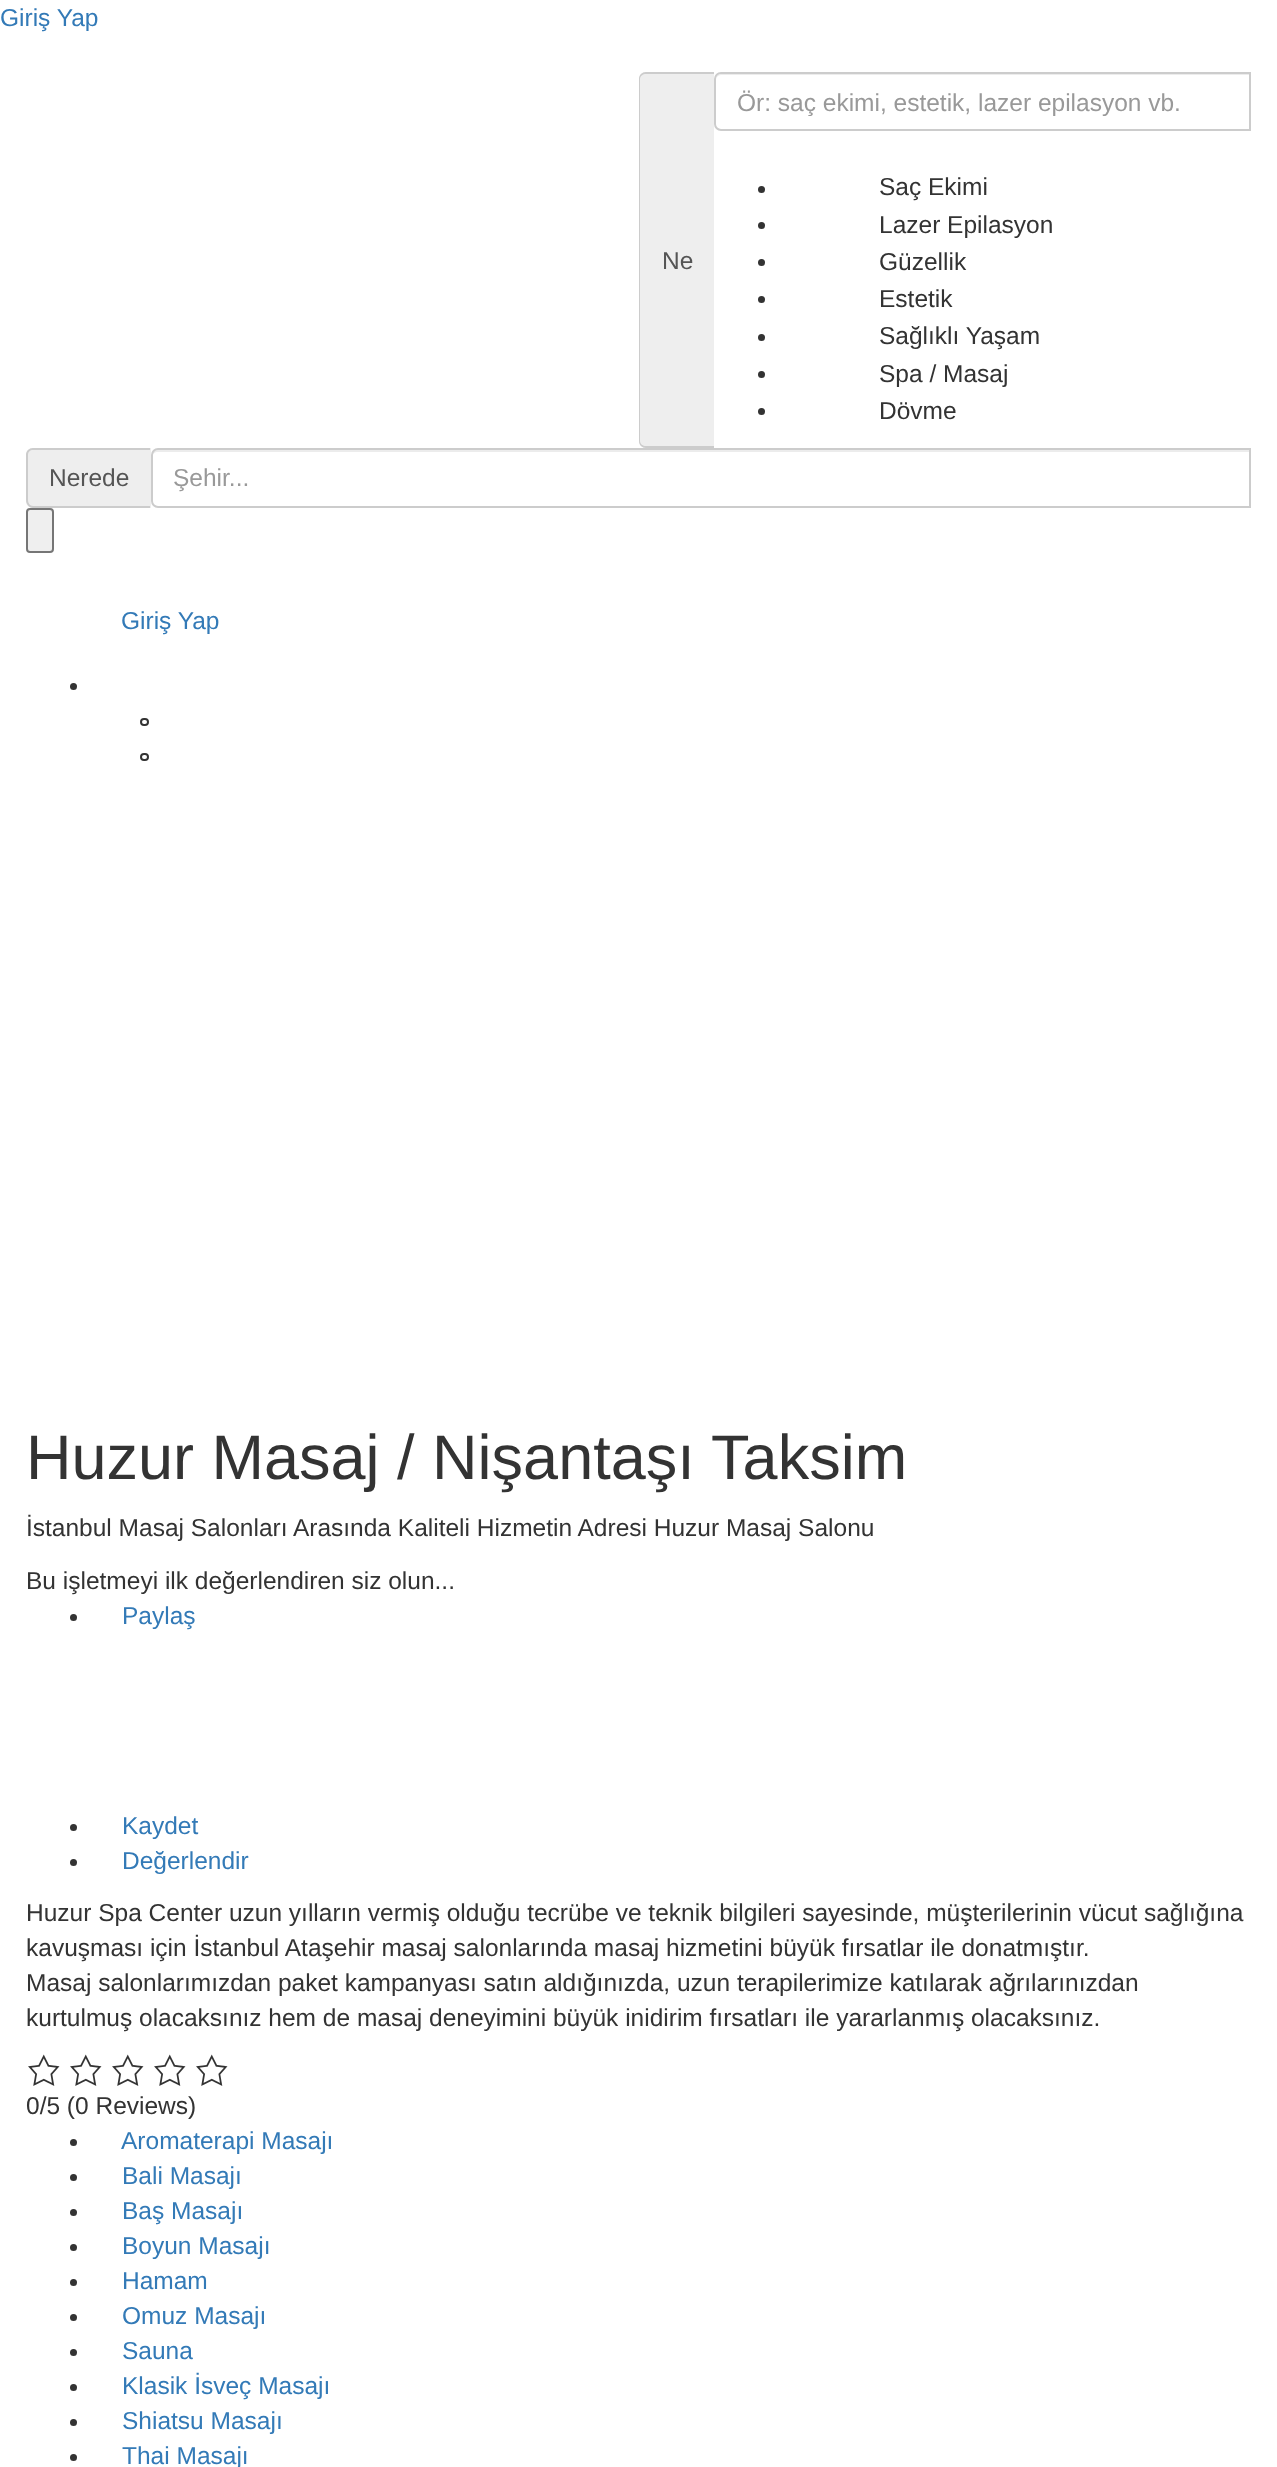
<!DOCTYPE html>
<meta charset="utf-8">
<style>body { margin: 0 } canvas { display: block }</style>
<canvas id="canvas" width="1277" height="2467"></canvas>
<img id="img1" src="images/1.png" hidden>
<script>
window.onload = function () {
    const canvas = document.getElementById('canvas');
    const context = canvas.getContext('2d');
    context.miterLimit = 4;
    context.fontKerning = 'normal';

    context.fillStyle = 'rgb(255, 255, 255)';
    context.fillRect(0, 0, 1277, 2467);
    context.fillStyle = 'rgb(238, 238, 238)';
    context.beginPath();
    context.roundRect(639, 72, 75, 376, [7, 0, 0, 7]);
    context.fill();
    context.fillStyle = 'rgb(204, 204, 204)';
    context.beginPath();
    context.moveTo(646, 72);
    context.lineTo(714, 72);
    context.lineTo(714, 448);
    context.lineTo(646, 448);
    context.bezierCurveTo(642, 448, 639, 445, 639, 441);
    context.lineTo(639, 79);
    context.bezierCurveTo(639, 75, 642, 72, 646, 72);
    context.closePath();
    context.moveTo(646, 74);
    context.lineTo(714, 74);
    context.lineTo(714, 446);
    context.lineTo(646, 446);
    context.bezierCurveTo(643, 446, 640, 444, 640, 441);
    context.lineTo(640, 79);
    context.bezierCurveTo(640, 76, 643, 74, 646, 74);
    context.closePath();
    context.fill('evenodd');
    context.fillStyle = 'rgb(236, 236, 236)';
    context.beginPath();
    context.moveTo(721, 75);
    context.lineTo(1250, 75);
    context.lineTo(1250, 74);
    context.lineTo(721, 74);
    context.bezierCurveTo(718, 74, 716, 77, 716, 80);
    context.bezierCurveTo(716, 78, 718, 75, 721, 75);
    context.closePath();
    context.fill();
    context.beginPath();
    context.roundRect(715, 73, 535, 57, [6, 0, 0, 6]);
    context.strokeStyle = 'rgb(204, 204, 204)';
    context.lineWidth = 2;
    context.stroke();
    context.fillStyle = 'rgb(51, 51, 51)';
    context.beginPath();
    context.arc(761.5, 189.5, 3.5, 0, 2 * Math.PI);
    context.fill();
    context.beginPath();
    context.arc(761.5, 225.5, 3.5, 0, 2 * Math.PI);
    context.fill();
    context.beginPath();
    context.arc(761.5, 262.5, 3.5, 0, 2 * Math.PI);
    context.fill();
    context.beginPath();
    context.arc(761.5, 299.5, 3.5, 0, 2 * Math.PI);
    context.fill();
    context.beginPath();
    context.arc(761.5, 337.5, 3.5, 0, 2 * Math.PI);
    context.fill();
    context.beginPath();
    context.arc(761.5, 374.5, 3.5, 0, 2 * Math.PI);
    context.fill();
    context.beginPath();
    context.arc(761.5, 411.5, 3.5, 0, 2 * Math.PI);
    context.fill();
    context.fillStyle = 'rgb(238, 238, 238)';
    context.beginPath();
    context.roundRect(26, 448, 125, 60, [7, 0, 0, 7]);
    context.fill();
    context.fillStyle = 'rgb(204, 204, 204)';
    context.beginPath();
    context.moveTo(33, 448);
    context.lineTo(150, 448);
    context.lineTo(150, 508);
    context.lineTo(33, 508);
    context.bezierCurveTo(29, 508, 26, 504, 26, 500);
    context.lineTo(26, 455);
    context.bezierCurveTo(26, 451, 29, 448, 33, 448);
    context.closePath();
    context.moveTo(33, 450);
    context.lineTo(150, 450);
    context.lineTo(150, 506);
    context.lineTo(33, 506);
    context.bezierCurveTo(30, 506, 28, 503, 28, 500);
    context.lineTo(28, 455);
    context.bezierCurveTo(28, 452, 30, 450, 33, 450);
    context.closePath();
    context.fill('evenodd');
    context.fillStyle = 'rgb(236, 236, 236)';
    context.beginPath();
    context.moveTo(158, 452);
    context.lineTo(1250, 452);
    context.lineTo(1250, 450);
    context.lineTo(157, 450);
    context.bezierCurveTo(154, 450, 152, 452, 152, 455);
    context.lineTo(152, 457);
    context.bezierCurveTo(152, 454, 155, 452, 158, 452);
    context.closePath();
    context.fill();
    context.beginPath();
    context.roundRect(152, 449, 1098, 58, [6, 0, 0, 6]);
    context.stroke();
    context.fillStyle = 'rgb(239, 239, 239)';
    context.beginPath();
    context.roundRect(27, 509, 26, 43, 3);
    context.fill();
    context.strokeStyle = 'rgb(118, 118, 118)';
    context.stroke();
    context.fillStyle = 'rgb(51, 51, 51)';
    context.beginPath();
    context.arc(73.5, 686.5, 3.5, 0, 2 * Math.PI);
    context.fill();
    context.beginPath();
    context.roundRect(141, 719, 7, 6, 3);
    context.strokeStyle = 'rgb(51, 51, 51)';
    context.stroke();
    context.beginPath();
    context.roundRect(141, 754, 7, 6, 3);
    context.stroke();
    context.beginPath();
    context.arc(73.5, 1617.5, 3.5, 0, 2 * Math.PI);
    context.fill();
    context.beginPath();
    context.arc(73.5, 1827.5, 3.5, 0, 2 * Math.PI);
    context.fill();
    context.beginPath();
    context.arc(73.5, 1862.5, 3.5, 0, 2 * Math.PI);
    context.fill();
    context.drawImage(document.getElementById('img1'), 28, 2054, 32, 32);
    context.drawImage(document.getElementById('img1'), 70, 2054, 32, 32);
    context.drawImage(document.getElementById('img1'), 112, 2054, 32, 32);
    context.drawImage(document.getElementById('img1'), 154, 2054, 32, 32);
    context.drawImage(document.getElementById('img1'), 196, 2054, 32, 32);
    context.beginPath();
    context.arc(73.5, 2142.5, 3.5, 0, 2 * Math.PI);
    context.fill();
    context.beginPath();
    context.arc(73.5, 2177.5, 3.5, 0, 2 * Math.PI);
    context.fill();
    context.beginPath();
    context.arc(73.5, 2212.5, 3.5, 0, 2 * Math.PI);
    context.fill();
    context.beginPath();
    context.arc(73.5, 2247.5, 3.5, 0, 2 * Math.PI);
    context.fill();
    context.beginPath();
    context.arc(73.5, 2282.5, 3.5, 0, 2 * Math.PI);
    context.fill();
    context.beginPath();
    context.arc(73.5, 2317.5, 3.5, 0, 2 * Math.PI);
    context.fill();
    context.beginPath();
    context.arc(73.5, 2352.5, 3.5, 0, 2 * Math.PI);
    context.fill();
    context.beginPath();
    context.arc(73.5, 2387.5, 3.5, 0, 2 * Math.PI);
    context.fill();
    context.beginPath();
    context.arc(73.5, 2422.5, 3.5, 0, 2 * Math.PI);
    context.fill();
    context.beginPath();
    context.arc(73.5, 2457.5, 3.5, 0, 2 * Math.PI);
    context.fill();
    context.font = '24.5px Liberation Sans';
    context.fillStyle = 'rgb(51, 122, 183)';
    context.fillText('Giriş Yap', 0, 26);
    context.fillStyle = 'rgb(85, 85, 85)';
    context.fillText('Ne', 662, 269);
    context.save();
    context.beginPath();
    context.rect(737, 88, 492, 28);
    context.clip();
    context.fillStyle = 'rgb(153, 153, 153)';
    context.fillText('Ör: saç ekimi, estetik, lazer epilasyon vb.', 737, 111);
    context.restore();
    context.fillStyle = 'rgb(51, 51, 51)';
    context.fillText('Saç Ekimi', 879, 195);
    context.fillText('Lazer Epilasyon', 879, 233);
    context.fillText('Güzellik', 879, 270);
    context.fillText('Estetik', 879, 307);
    context.fillText('Sağlıklı Yaşam', 879, 344);
    context.fillText('Spa / Masaj', 879, 382);
    context.fillText('Dövme', 879, 419);
    context.fillStyle = 'rgb(85, 85, 85)';
    context.fillText('Nerede', 49, 486);
    context.fillStyle = 'rgb(153, 153, 153)';
    context.fillText('Şehir...', 173, 486);
    context.fillStyle = 'rgb(51, 122, 183)';
    context.fillText('Giriş Yap', 121, 629);
    context.font = '63px Liberation Sans';
    context.fillStyle = 'rgb(51, 51, 51)';
    context.fillText('Huzur Masaj / Nişantaşı Taksim', 26, 1479);
    context.font = '24.5px Liberation Sans';
    context.fillText('İstanbul Masaj Salonları Arasında Kaliteli Hizmetin Adresi Huzur Masaj Salonu', 26, 1536);
    context.fillText('Bu işletmeyi ilk değerlendiren siz olun...', 26, 1589);
    context.fillStyle = 'rgb(51, 122, 183)';
    context.fillText('Paylaş', 122, 1624);
    context.fillText('Kaydet', 122, 1834);
    context.fillText('Değerlendir', 122, 1869);
    context.fillStyle = 'rgb(51, 51, 51)';
    context.fillText('Huzur Spa Center uzun yılların vermiş olduğu tecrübe ve teknik bilgileri sayesinde, müşterilerinin vücut sağlığına', 26, 1921);
    context.fillText('kavuşması için İstanbul Ataşehir masaj salonlarında masaj hizmetini büyük fırsatlar ile donatmıştır.', 26, 1956);
    context.fillText('Masaj salonlarımızdan paket kampanyası satın aldığınızda, uzun terapilerimize katılarak ağrılarınızdan', 26, 1991);
    context.fillText('kurtulmuş olacaksınız hem de masaj deneyimini büyük inidirim fırsatları ile yararlanmış olacaksınız.', 26, 2026);
    context.fillText('0/5 (0 Reviews)', 26, 2114);
    context.fillStyle = 'rgb(51, 122, 183)';
    context.fillText('Aromaterapi Masajı', 121, 2149);
    context.fillText('Bali Masajı', 122, 2184);
    context.fillText('Baş Masajı', 122, 2219);
    context.fillText('Boyun Masajı', 122, 2254);
    context.fillText('Hamam', 122, 2289);
    context.fillText('Omuz Masajı', 122, 2324);
    context.fillText('Sauna', 122, 2359);
    context.fillText('Klasik İsveç Masajı', 122, 2394);
    context.fillText('Shiatsu Masajı', 122, 2429);
    context.fillText('Thai Masajı', 122, 2464);
};
</script>
